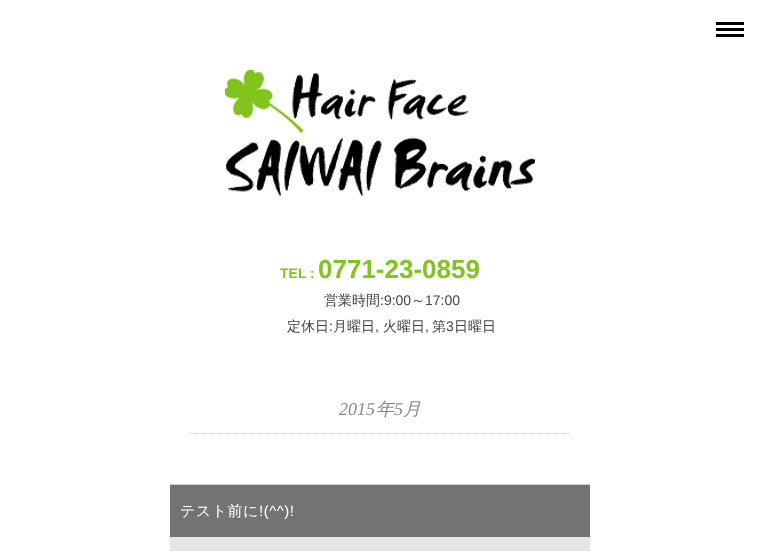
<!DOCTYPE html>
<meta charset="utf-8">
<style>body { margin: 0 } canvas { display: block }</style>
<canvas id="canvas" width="760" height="551"></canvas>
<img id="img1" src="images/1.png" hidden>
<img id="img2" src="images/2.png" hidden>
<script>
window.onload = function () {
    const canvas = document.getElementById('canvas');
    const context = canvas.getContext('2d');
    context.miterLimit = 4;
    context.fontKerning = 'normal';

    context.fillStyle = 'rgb(255, 255, 255)';
    context.fillRect(0, 0, 760, 551);
    context.drawImage(document.getElementById('img1'), 716, 22, 28, 15);
    context.drawImage(document.getElementById('img2'), 225, 70, 310, 126);
    context.beginPath();
    context.moveTo(190, 433.5);
    context.lineTo(570, 433.5);
    context.strokeStyle = 'rgb(204, 204, 204)';
    context.setLineDash([1, 1]);
    context.stroke();
    context.fillStyle = 'rgb(115, 115, 115)';
    context.fillRect(170, 485, 420, 52);
    context.fillStyle = 'rgb(204, 204, 204)';
    context.fillRect(170, 484, 420, 1);
    context.fillStyle = 'rgb(230, 230, 230)';
    context.fillRect(170, 537, 420, 14);
    context.font = 'bold 14px Liberation Sans';
    context.fillStyle = 'rgb(128, 196, 28)';
    context.fillText('TEL :', 280, 278);
    context.font = 'bold 26px Liberation Sans';
    context.fillText('0771-23-0859', 318, 278);
    context.font = '500 14px WenQuanYi Zen Hei';
    context.fillStyle = 'rgb(68, 68, 68)';
    context.fillText('営業時間', 324, 305);
    context.font = '14px Liberation Sans';
    context.fillText(':9:00', 380, 305);
    context.font = '500 14px WenQuanYi Zen Hei';
    context.fillText('～', 411, 305);
    context.font = '14px Liberation Sans';
    context.fillText('17:00', 425, 305);
    context.font = '500 14px WenQuanYi Zen Hei';
    context.fillText('定休日', 287, 331);
    context.font = '14px Liberation Sans';
    context.fillText(':', 329, 331);
    context.font = '500 14px WenQuanYi Zen Hei';
    context.fillText('月曜日', 333, 331);
    context.font = '14px Liberation Sans';
    context.fillText(',', 375, 331);
    context.font = '500 14px WenQuanYi Zen Hei';
    context.fillText('火曜日', 383, 331);
    context.font = '14px Liberation Sans';
    context.fillText(',', 425, 331);
    context.font = '500 14px WenQuanYi Zen Hei';
    context.fillText('第', 432, 331);
    context.font = '14px Liberation Sans';
    context.fillText('3', 446, 331);
    context.font = '500 14px WenQuanYi Zen Hei';
    context.fillText('日曜日', 454, 331);
    context.font = 'italic 18px Liberation Serif';
    context.fillStyle = 'rgb(136, 136, 136)';
    context.fillText('2015', 339, 415);
    context.font = 'italic 500 18px WenQuanYi Zen Hei';
    context.fillText('年', 376, 415);
    context.font = 'italic 18px Liberation Serif';
    context.fillText('5', 394, 415);
    context.font = 'italic 500 18px WenQuanYi Zen Hei';
    context.fillText('月', 403, 415);
    context.letterSpacing = '0.5px';
    context.font = '500 15px WenQuanYi Zen Hei';
    context.fillStyle = 'rgb(255, 255, 255)';
    context.fillText('テスト前に', 180, 516);
    context.font = '15px Liberation Sans';
    context.fillText('!(^^)!', 259, 516);
};
</script>
